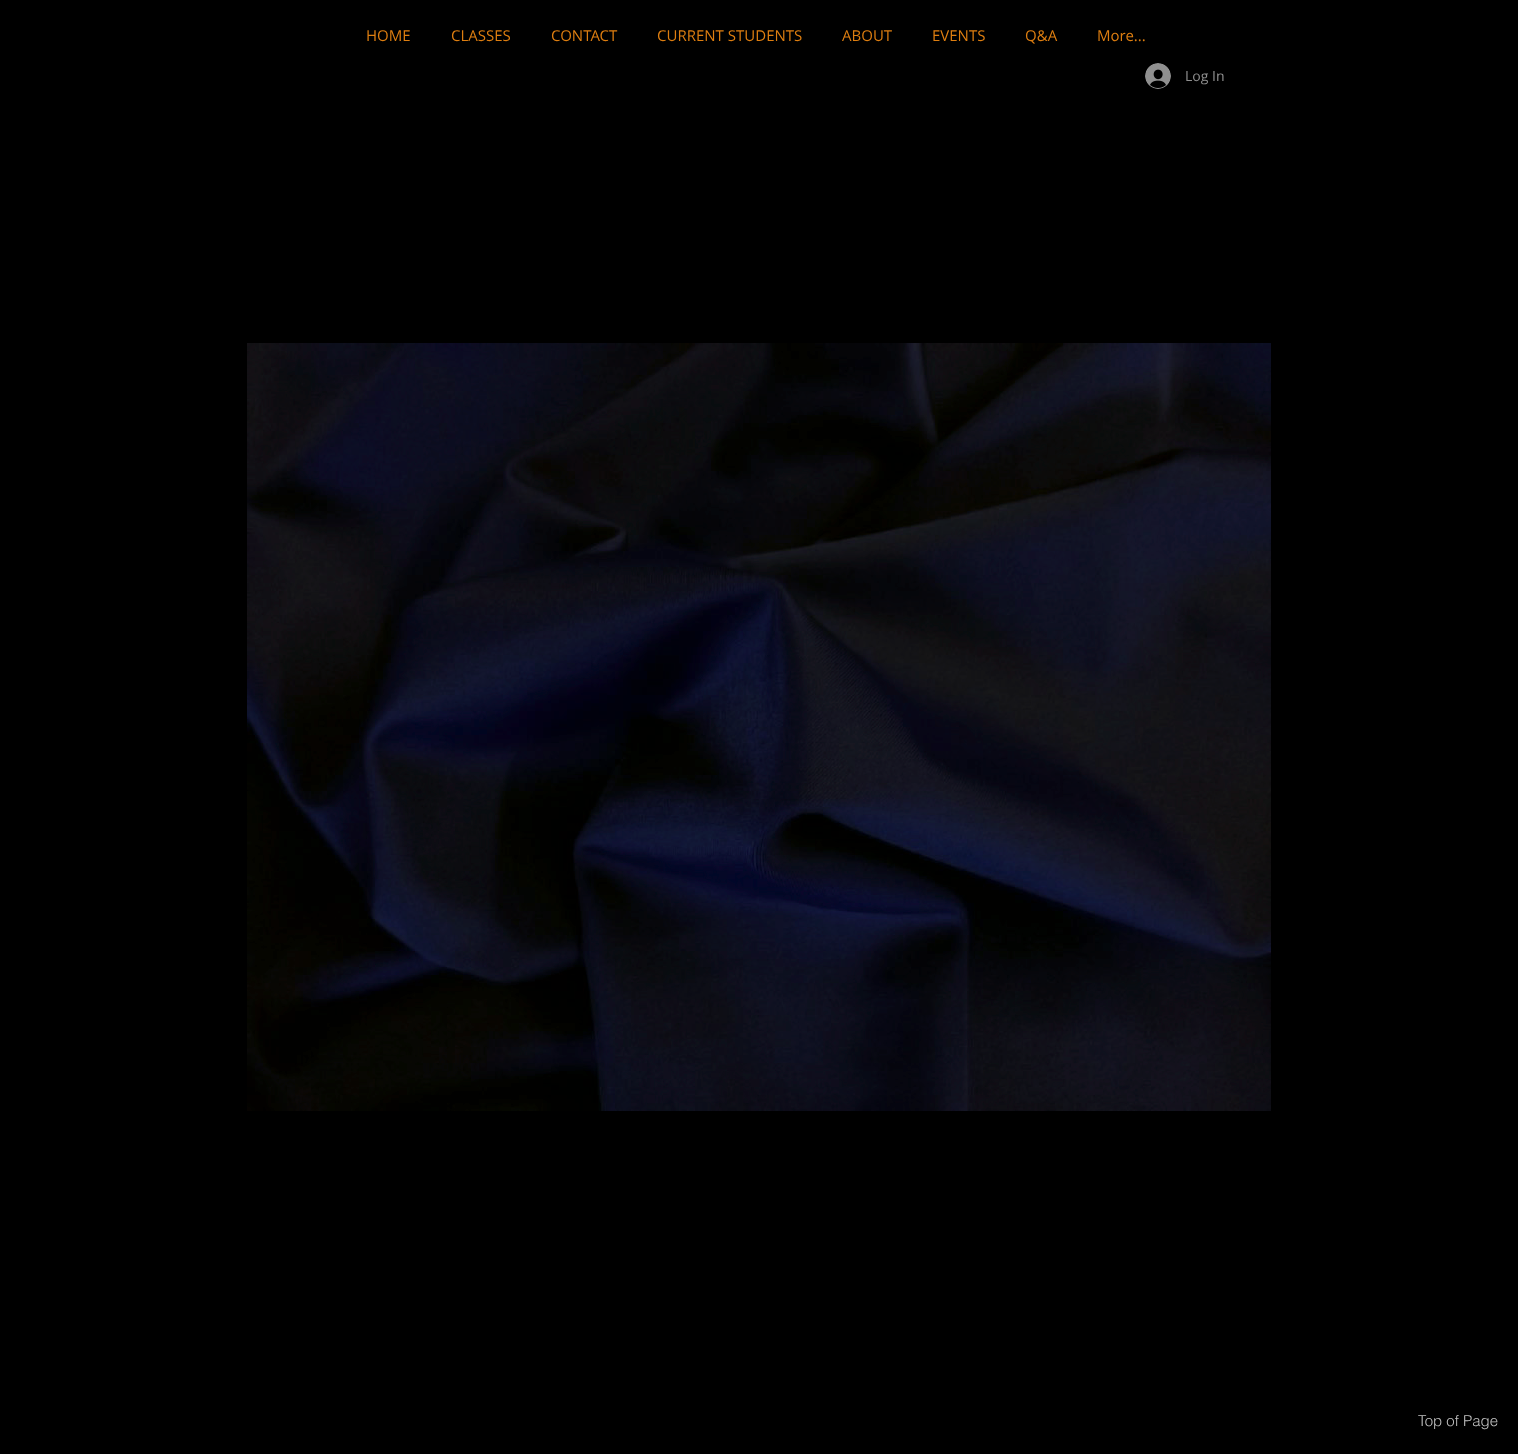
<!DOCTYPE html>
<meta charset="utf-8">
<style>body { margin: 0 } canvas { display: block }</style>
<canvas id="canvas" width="1518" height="1454"></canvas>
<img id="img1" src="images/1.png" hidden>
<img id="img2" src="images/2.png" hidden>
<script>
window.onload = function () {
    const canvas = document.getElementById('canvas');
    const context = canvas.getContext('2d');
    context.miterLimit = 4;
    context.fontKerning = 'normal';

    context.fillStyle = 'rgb(0, 0, 0)';
    context.fillRect(0, 0, 1518, 1454);
    context.drawImage(document.getElementById('img1'), 1145, 63, 26, 26);
    context.drawImage(document.getElementById('img2'), 247, 343, 1024, 768);
    context.font = '15px Open Sans';
    context.fillStyle = 'rgb(222, 126, 16)';
    context.fillText('HOME', 366, 41);
    context.fillText('CLASSES', 451, 41);
    context.fillText('CONTACT', 551, 41);
    context.fillText('CURRENT STUDENTS', 657, 41);
    context.fillText('ABOUT', 842, 41);
    context.fillText('EVENTS', 932, 41);
    context.fillText('Q&A', 1025, 41);
    context.fillText('More...', 1097, 41);
    context.font = '14px Open Sans';
    context.fillStyle = 'rgb(144, 144, 144)';
    context.fillText('Log In', 1185, 81);
    context.font = '300 15px helvetica';
    context.fillStyle = 'rgb(193, 193, 193)';
    context.fillText('Top of Page', 1418, 1426);
};
</script>
